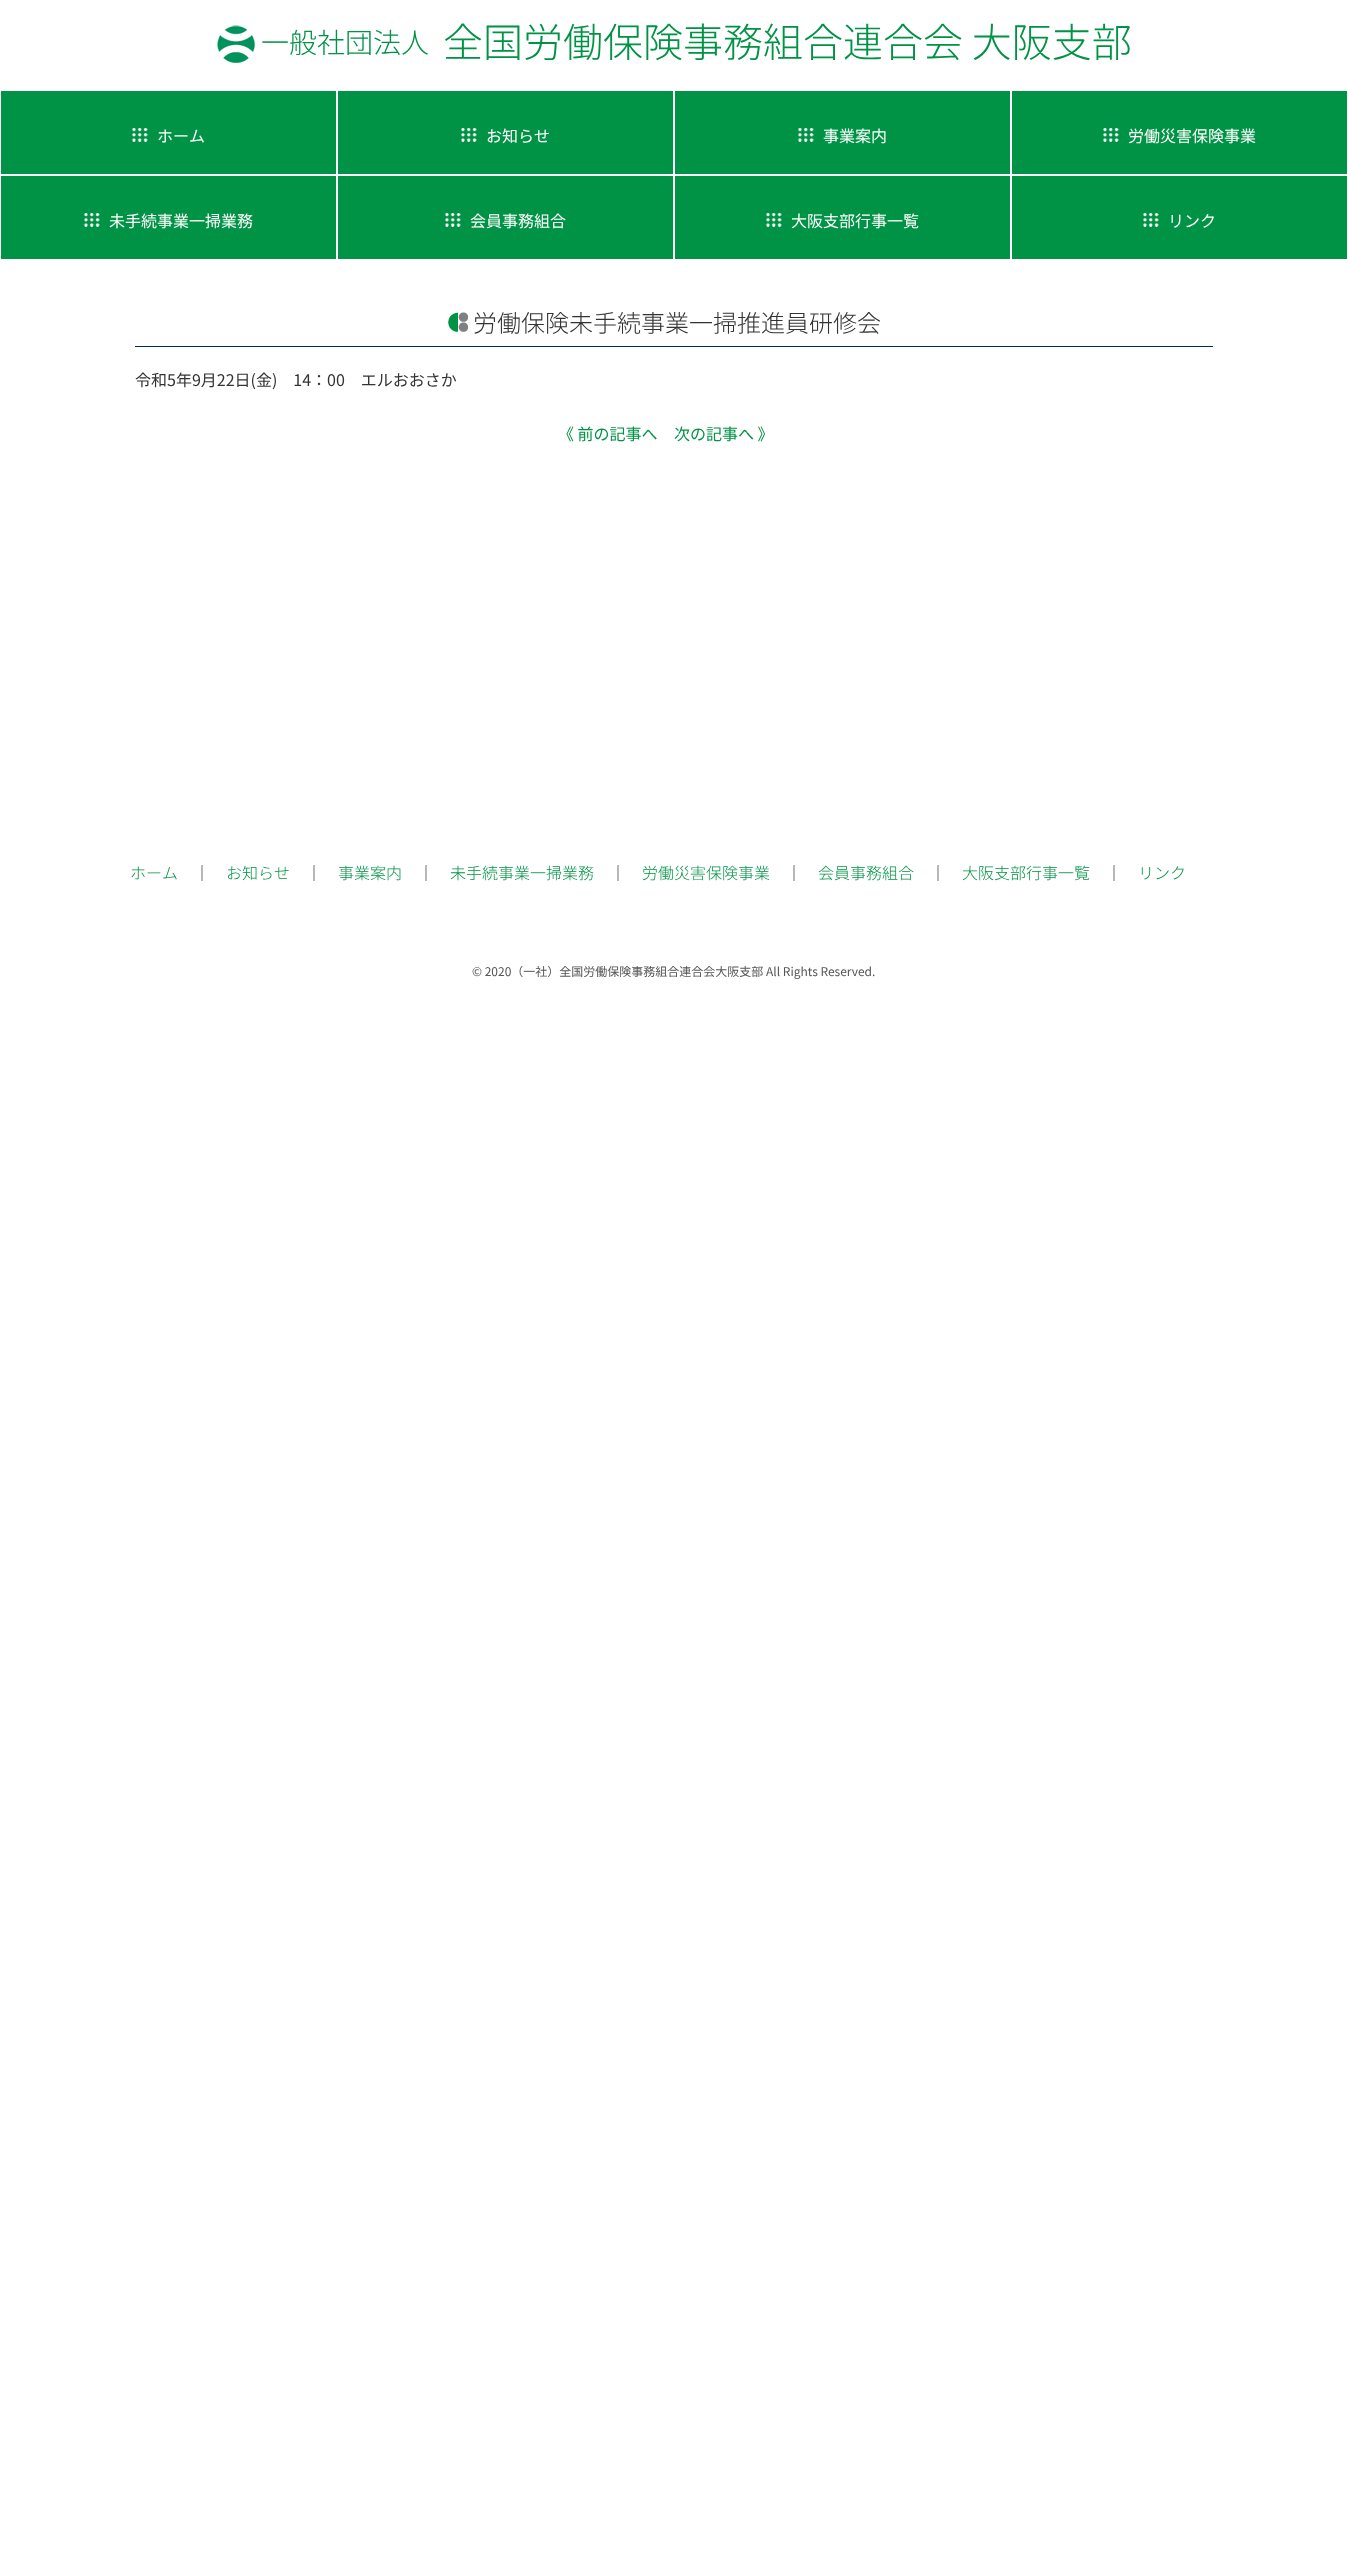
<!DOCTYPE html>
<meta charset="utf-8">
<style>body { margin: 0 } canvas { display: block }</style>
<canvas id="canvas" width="1348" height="2554"></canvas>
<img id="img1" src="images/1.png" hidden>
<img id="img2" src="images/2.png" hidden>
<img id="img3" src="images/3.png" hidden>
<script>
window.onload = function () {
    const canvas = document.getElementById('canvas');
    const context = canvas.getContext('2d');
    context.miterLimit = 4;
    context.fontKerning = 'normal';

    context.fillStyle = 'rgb(255, 255, 255)';
    context.fillRect(0, 0, 1348, 2554);
    context.drawImage(document.getElementById('img1'), 217, 25, 38, 38);
    context.fillStyle = 'rgb(0, 146, 69)';
    context.fillRect(1, 91, 335, 83);
    context.drawImage(document.getElementById('img2'), 132, 128, 16, 14);
    context.fillRect(338, 91, 335, 83);
    context.drawImage(document.getElementById('img2'), 461, 128, 16, 14);
    context.fillRect(675, 91, 335, 83);
    context.drawImage(document.getElementById('img2'), 798, 128, 16, 14);
    context.fillRect(1012, 91, 335, 83);
    context.drawImage(document.getElementById('img2'), 1103, 128, 16, 14);
    context.fillRect(1, 176, 335, 83);
    context.drawImage(document.getElementById('img2'), 84, 213, 16, 14);
    context.fillRect(338, 176, 335, 83);
    context.drawImage(document.getElementById('img2'), 445, 213, 16, 14);
    context.fillRect(675, 176, 335, 83);
    context.drawImage(document.getElementById('img2'), 766, 213, 16, 14);
    context.fillRect(1012, 176, 335, 83);
    context.drawImage(document.getElementById('img2'), 1143, 213, 16, 14);
    context.fillStyle = 'rgb(0, 41, 83)';
    context.fillRect(135, 346, 1078, 1);
    context.drawImage(document.getElementById('img3'), 448, 312, 20, 20);
    context.font = '300 28px Noto Sans JP';
    context.fillStyle = 'rgb(0, 146, 69)';
    context.fillText('一般社団法人', 261, 53);
    context.font = '300 40px Noto Sans JP';
    context.fillText('全国労働保険事務組合連合会 大阪支部', 443, 57);
    context.font = '16px Noto Sans JP';
    context.fillStyle = 'rgb(255, 255, 255)';
    context.fillText('ホーム', 157, 142);
    context.fillText('お知らせ', 486, 142);
    context.fillText('事業案内', 823, 142);
    context.fillText('労働災害保険事業', 1128, 142);
    context.fillText('未手続事業一掃業務', 109, 227);
    context.fillText('会員事務組合', 470, 227);
    context.fillText('大阪支部行事一覧', 791, 227);
    context.fillText('リンク', 1168, 227);
    context.font = '300 24px Noto Sans JP';
    context.fillStyle = 'rgb(51, 51, 51)';
    context.fillText('労働保険未手続事業一掃推進員研修会', 473, 332);
    context.font = '16px Noto Sans JP';
    context.fillText('令和5年9月22日(金)　14：00　エルおおさか', 135, 386);
    context.fillStyle = 'rgb(0, 146, 69)';
    context.fillText('《 前の記事へ', 558, 440);
    context.fillText('次の記事へ 》', 674, 440);
    context.font = '300 16px Noto Sans JP';
    context.fillText('ホーム', 130, 879);
    context.font = '16px Noto Sans JP';
    context.fillStyle = 'rgb(51, 51, 51)';
    context.fillText('｜', 194, 879);
    context.font = '300 16px Noto Sans JP';
    context.fillStyle = 'rgb(0, 146, 69)';
    context.fillText('お知らせ', 226, 879);
    context.font = '16px Noto Sans JP';
    context.fillStyle = 'rgb(51, 51, 51)';
    context.fillText('｜', 306, 879);
    context.font = '300 16px Noto Sans JP';
    context.fillStyle = 'rgb(0, 146, 69)';
    context.fillText('事業案内', 338, 879);
    context.font = '16px Noto Sans JP';
    context.fillStyle = 'rgb(51, 51, 51)';
    context.fillText('｜', 418, 879);
    context.font = '300 16px Noto Sans JP';
    context.fillStyle = 'rgb(0, 146, 69)';
    context.fillText('未手続事業一掃業務', 450, 879);
    context.font = '16px Noto Sans JP';
    context.fillStyle = 'rgb(51, 51, 51)';
    context.fillText('｜', 610, 879);
    context.font = '300 16px Noto Sans JP';
    context.fillStyle = 'rgb(0, 146, 69)';
    context.fillText('労働災害保険事業', 642, 879);
    context.font = '16px Noto Sans JP';
    context.fillStyle = 'rgb(51, 51, 51)';
    context.fillText('｜', 786, 879);
    context.font = '300 16px Noto Sans JP';
    context.fillStyle = 'rgb(0, 146, 69)';
    context.fillText('会員事務組合', 818, 879);
    context.font = '16px Noto Sans JP';
    context.fillStyle = 'rgb(51, 51, 51)';
    context.fillText('｜', 930, 879);
    context.font = '300 16px Noto Sans JP';
    context.fillStyle = 'rgb(0, 146, 69)';
    context.fillText('大阪支部行事一覧', 962, 879);
    context.font = '16px Noto Sans JP';
    context.fillStyle = 'rgb(51, 51, 51)';
    context.fillText('｜', 1106, 879);
    context.font = '300 16px Noto Sans JP';
    context.fillStyle = 'rgb(0, 146, 69)';
    context.fillText('リンク', 1138, 879);
    context.font = '12px Noto Sans JP';
    context.fillStyle = 'rgb(85, 85, 85)';
    context.fillText('© 2020（一社）全国労働保険事務組合連合会大阪支部 All Rights Reserved.', 472, 976);
};
</script>
